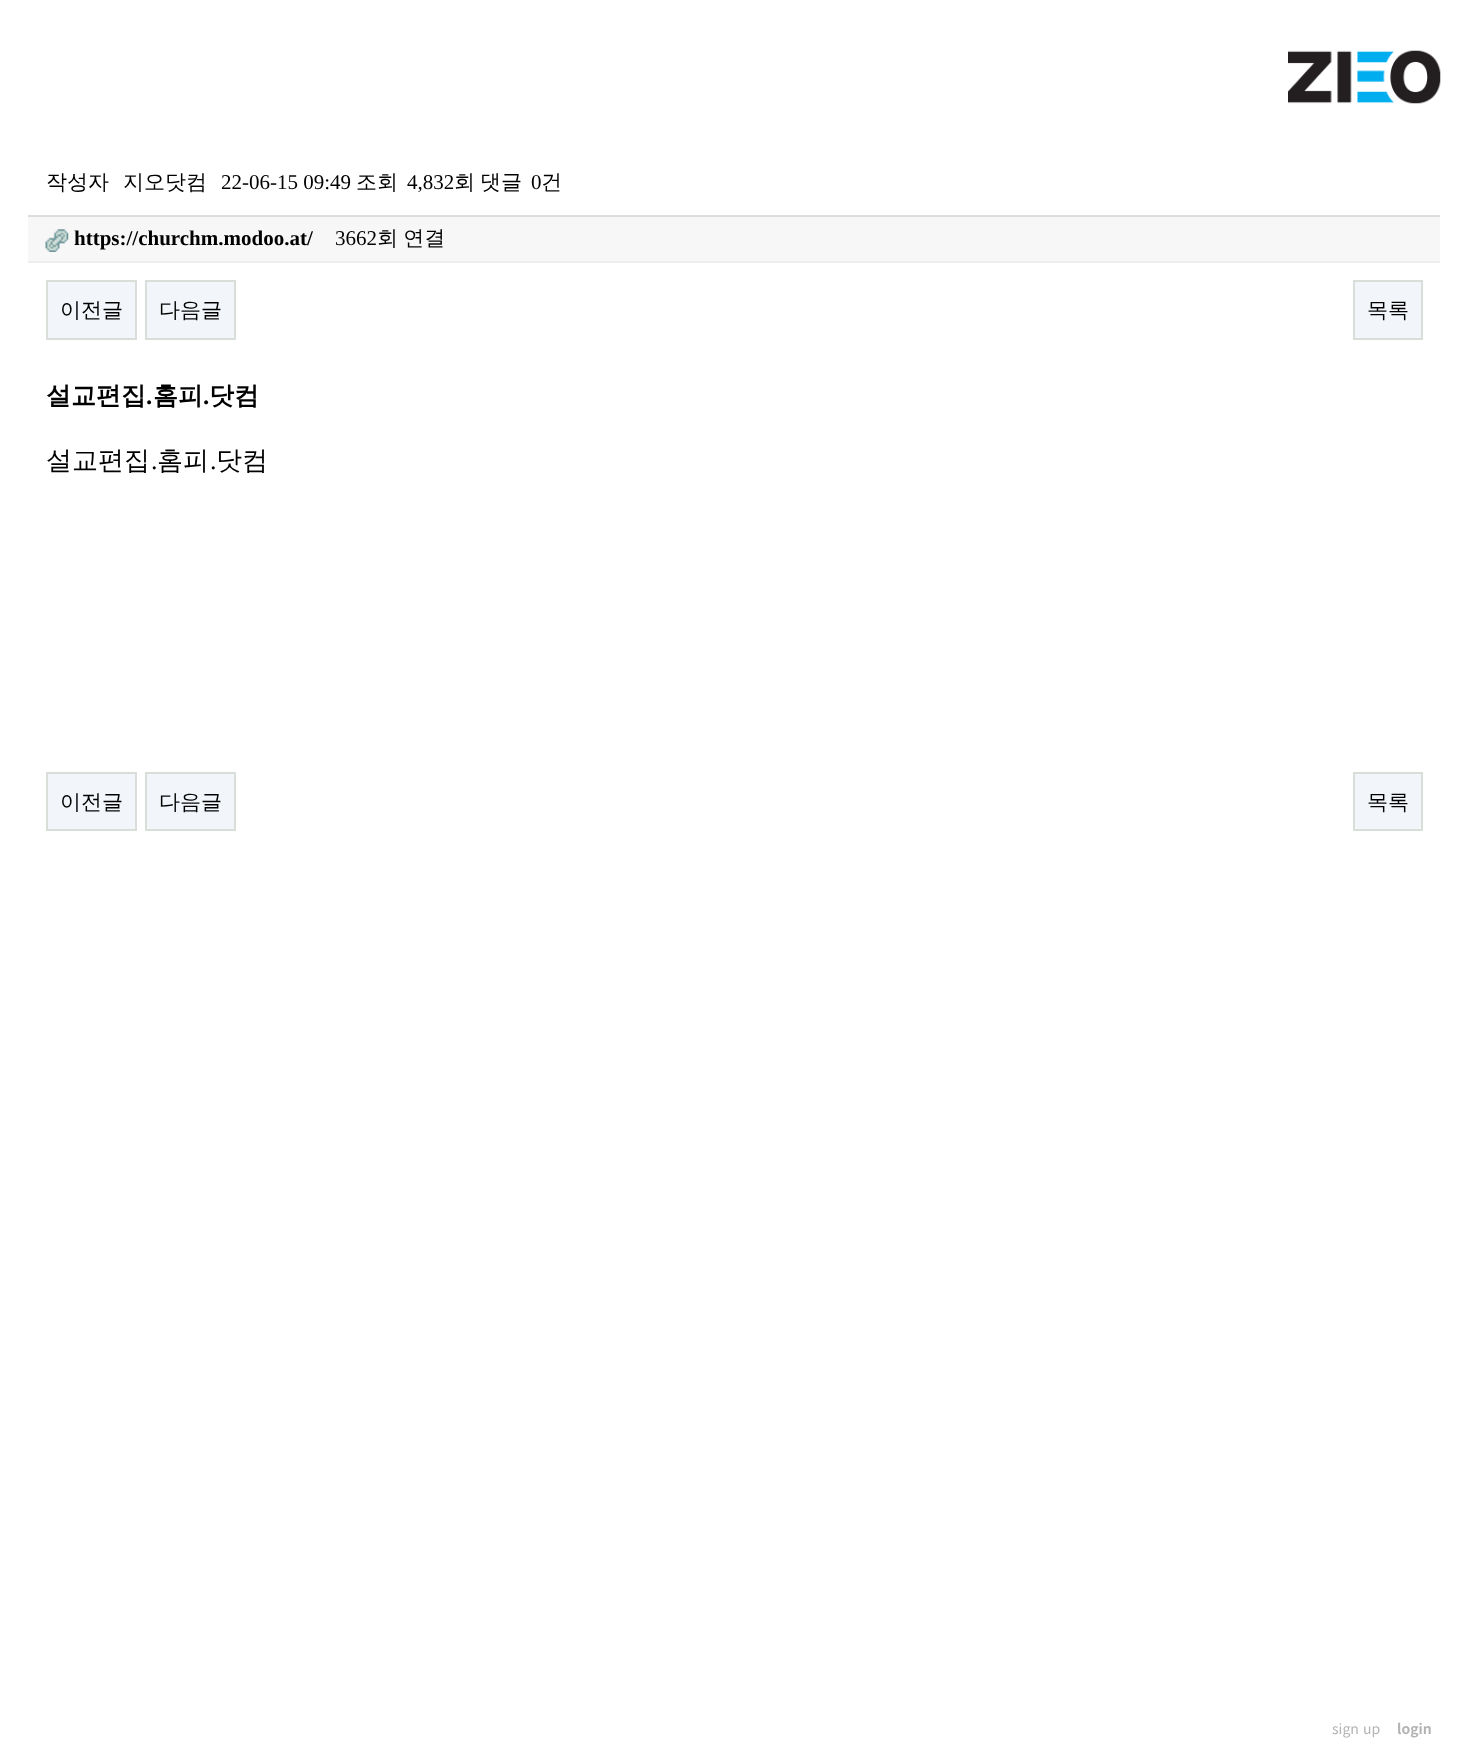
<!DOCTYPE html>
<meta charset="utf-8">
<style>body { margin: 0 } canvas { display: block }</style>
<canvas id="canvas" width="1467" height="1762"></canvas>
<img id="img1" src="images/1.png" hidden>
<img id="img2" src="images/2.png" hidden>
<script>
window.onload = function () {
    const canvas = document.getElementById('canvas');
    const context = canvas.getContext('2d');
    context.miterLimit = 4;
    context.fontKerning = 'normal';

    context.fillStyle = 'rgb(255, 255, 255)';
    context.fillRect(0, 0, 1467, 1762);
    context.drawImage(document.getElementById('img1'), 1288, 50, 153, 54);
    context.fillStyle = 'rgb(221, 221, 221)';
    context.fillRect(28, 215, 1412, 2);
    context.fillStyle = 'rgb(247, 247, 247)';
    context.fillRect(28, 217, 1412, 44);
    context.fillStyle = 'rgb(238, 238, 238)';
    context.fillRect(28, 261, 1412, 2);
    context.drawImage(document.getElementById('img2'), 45, 229, 24, 23);
    context.fillStyle = 'rgb(242, 245, 249)';
    context.beginPath();
    context.rect(47, 281, 89, 58);
    context.fill();
    context.strokeStyle = 'rgb(217, 222, 217)';
    context.lineWidth = 2;
    context.stroke();
    context.beginPath();
    context.rect(146, 281, 89, 58);
    context.fill();
    context.stroke();
    context.beginPath();
    context.rect(1354, 281, 68, 58);
    context.fill();
    context.stroke();
    context.beginPath();
    context.rect(47, 773, 89, 57);
    context.fill();
    context.stroke();
    context.beginPath();
    context.rect(146, 773, 89, 57);
    context.fill();
    context.stroke();
    context.beginPath();
    context.rect(1354, 773, 68, 57);
    context.fill();
    context.stroke();
    context.font = '500 21px WenQuanYi Zen Hei';
    context.fillStyle = 'rgb(0, 0, 0)';
    context.fillText('작성자', 46, 189);
    context.fillText('지오닷컴', 123, 189);
    context.font = '21px Liberation Serif';
    context.fillText('22-06-15 09:49', 221, 189);
    context.font = '500 21px WenQuanYi Zen Hei';
    context.fillText('조회', 356, 189);
    context.font = '21px Liberation Serif';
    context.fillText('4,832', 407, 189);
    context.font = '500 21px WenQuanYi Zen Hei';
    context.fillText('회', 454, 189);
    context.fillText('댓글', 480, 189);
    context.font = '21px Liberation Serif';
    context.fillText('0', 531, 189);
    context.font = '500 21px WenQuanYi Zen Hei';
    context.fillText('건', 541, 189);
    context.font = 'bold 21px Liberation Serif';
    context.fillText('https://churchm.modoo.at/', 74, 245);
    context.font = '21px Liberation Serif';
    context.fillText('3662', 335, 245);
    context.wordSpacing = '-1px';
    context.font = '500 21px WenQuanYi Zen Hei';
    context.fillText('회 연결', 377, 245);
    context.wordSpacing = '0px';
    context.fillText('이전글', 60, 317);
    context.fillText('다음글', 159, 317);
    context.fillText('목록', 1367, 317);
    context.font = 'bold 25px WenQuanYi Zen Hei';
    context.fillText('설교편집', 46, 404);
    context.font = 'bold 25px Liberation Serif';
    context.fillText('.', 146, 404);
    context.font = 'bold 25px WenQuanYi Zen Hei';
    context.fillText('홈피', 153, 404);
    context.font = 'bold 25px Liberation Serif';
    context.fillText('.', 203, 404);
    context.font = 'bold 25px WenQuanYi Zen Hei';
    context.fillText('닷컴', 209, 404);
    context.font = '500 26px WenQuanYi Zen Hei';
    context.fillText('설교편집', 46, 469);
    context.font = '26px Liberation Serif';
    context.fillText('.', 151, 469);
    context.font = '500 26px WenQuanYi Zen Hei';
    context.fillText('홈피', 157, 469);
    context.font = '26px Liberation Serif';
    context.fillText('.', 210, 469);
    context.font = '500 26px WenQuanYi Zen Hei';
    context.fillText('닷컴', 216, 469);
    context.font = '500 21px WenQuanYi Zen Hei';
    context.fillText('이전글', 60, 809);
    context.fillText('다음글', 159, 809);
    context.fillText('목록', 1367, 809);
    context.wordSpacing = '1px';
    context.font = '14px Noto Sans KR';
    context.fillStyle = 'rgb(179, 179, 179)';
    context.fillText('sign up', 1332, 1734);
    context.wordSpacing = '0px';
    context.font = 'bold 14px Noto Sans KR';
    context.fillText('login', 1397, 1734);
};
</script>
